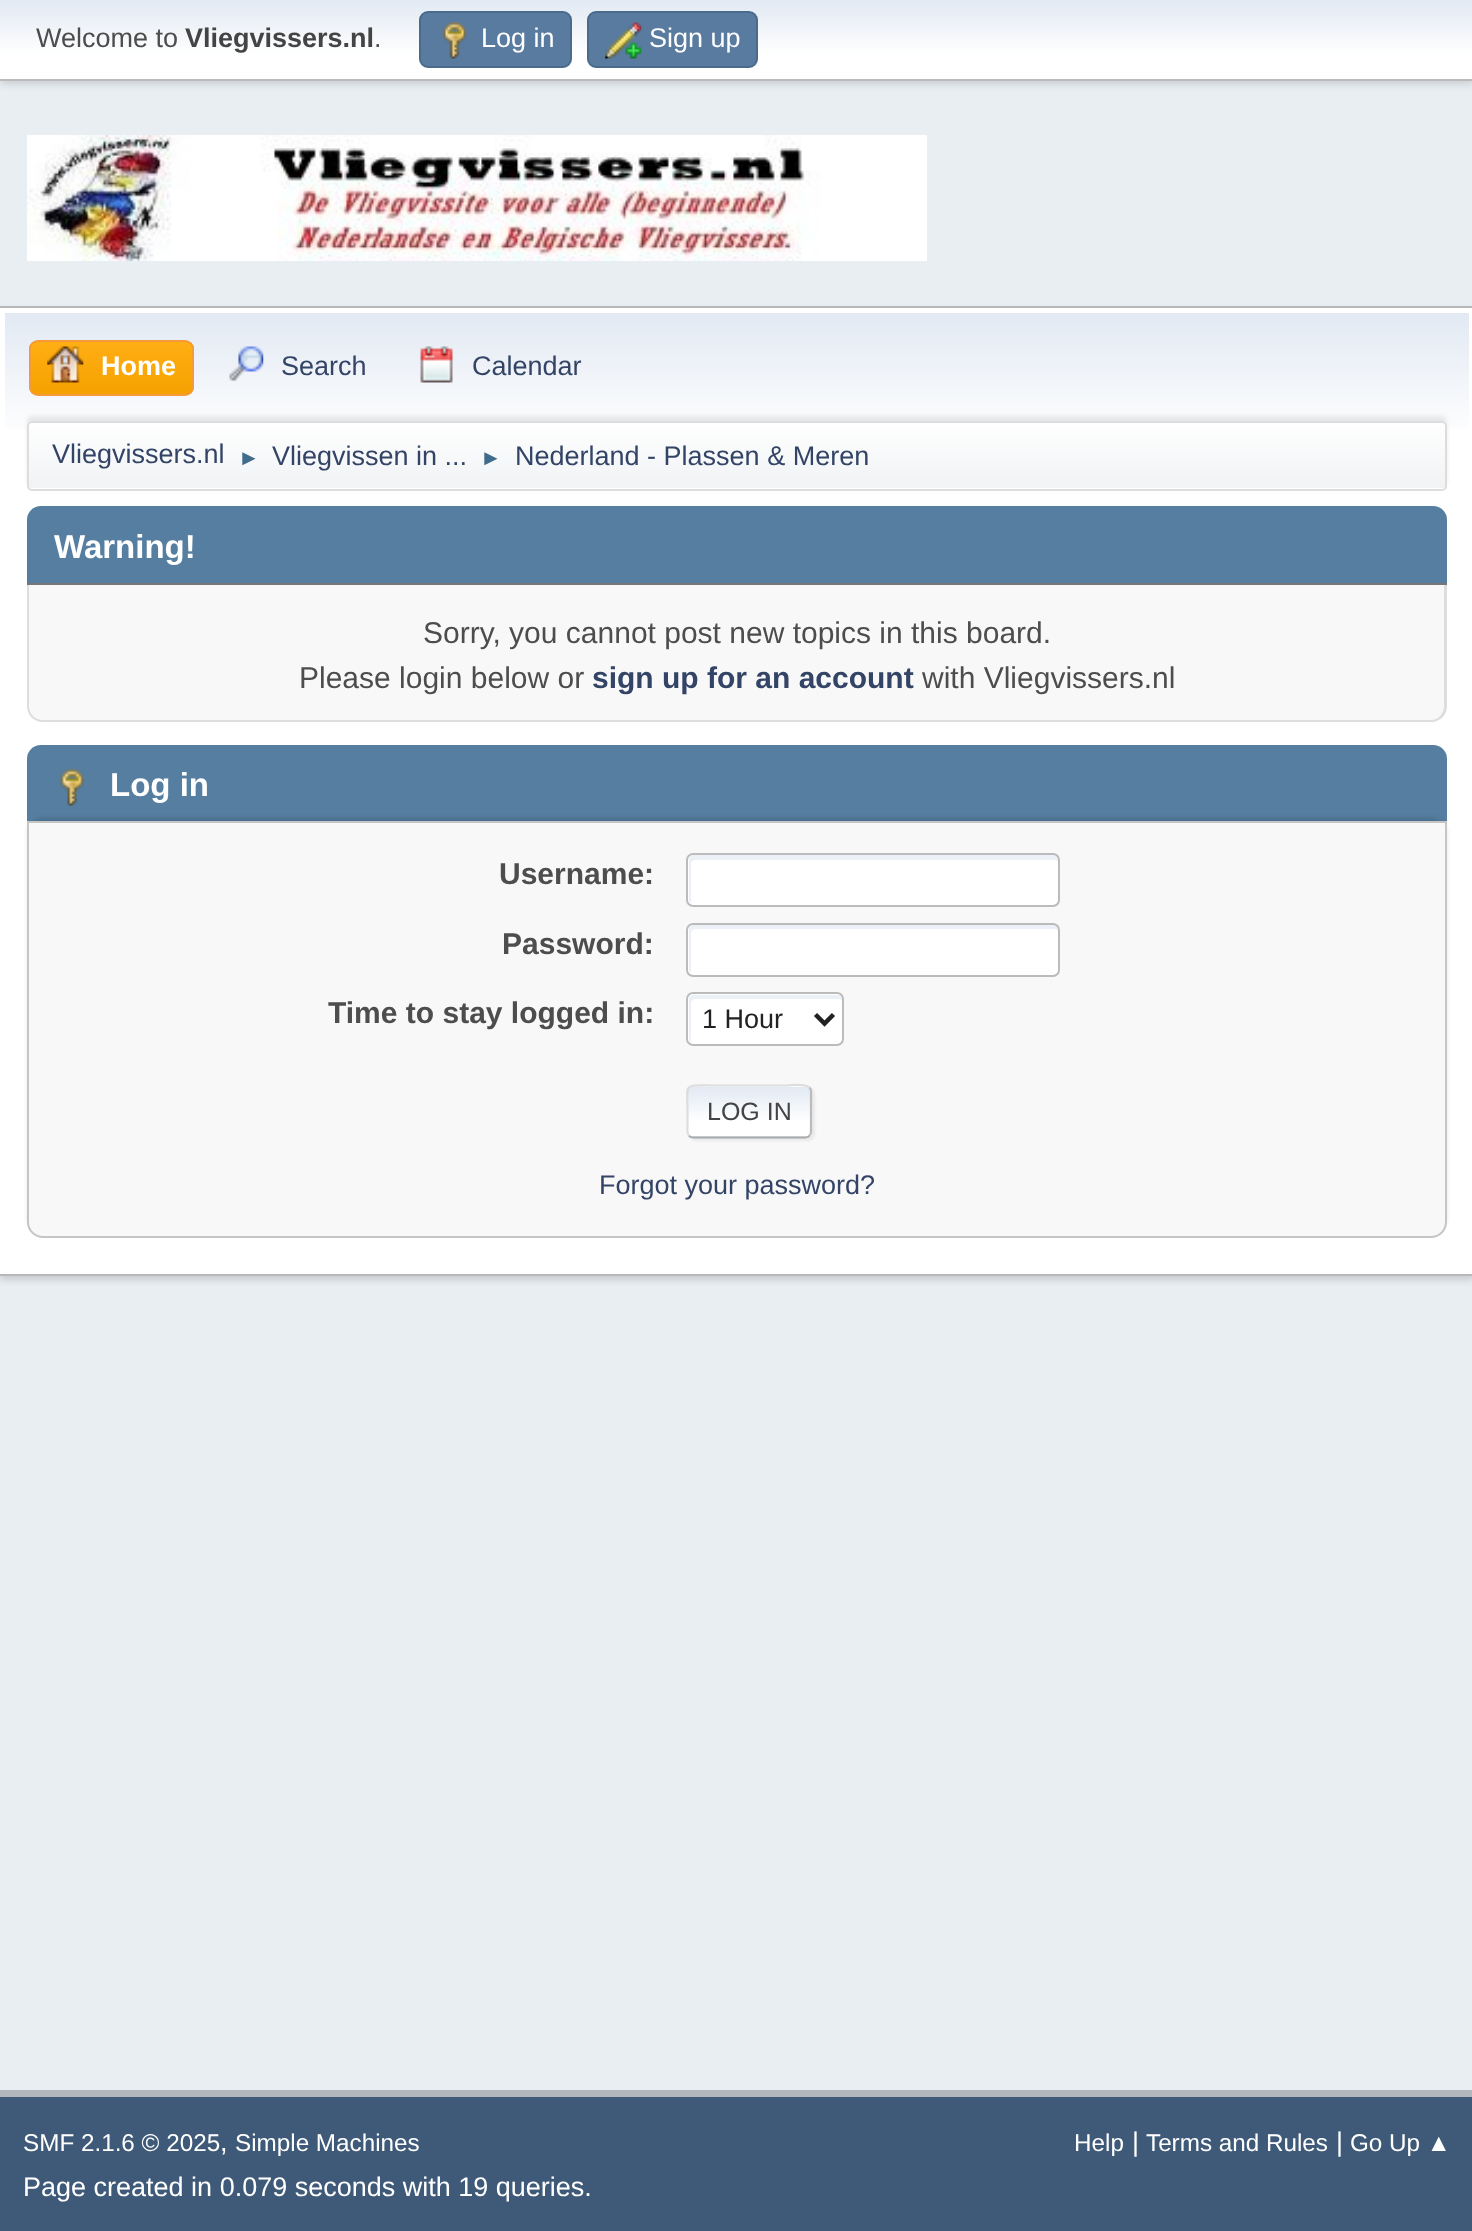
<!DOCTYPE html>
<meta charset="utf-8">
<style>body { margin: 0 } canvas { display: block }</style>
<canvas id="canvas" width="1472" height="2231"></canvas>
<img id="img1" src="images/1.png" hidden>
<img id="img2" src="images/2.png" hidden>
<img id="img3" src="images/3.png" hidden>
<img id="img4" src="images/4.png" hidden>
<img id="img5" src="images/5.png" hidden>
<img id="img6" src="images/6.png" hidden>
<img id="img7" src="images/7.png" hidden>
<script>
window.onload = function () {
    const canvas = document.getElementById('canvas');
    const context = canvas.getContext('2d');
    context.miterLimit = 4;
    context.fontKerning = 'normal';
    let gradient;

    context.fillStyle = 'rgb(233, 238, 242)';
    context.fillRect(0, 0, 1472, 2231);
    context.fillStyle = 'rgba(0, 0, 0, 0.16)';
    context.filter = 'blur(4.5px)';
    context.beginPath();
    context.rect(0, 2, 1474, 81);
    context.fill();
    context.filter = 'none';
    gradient = context.createLinearGradient(737, 0, 737, 79);
    gradient.addColorStop(0, 'rgb(226, 233, 243)');
    gradient.addColorStop(0.7, 'rgb(255, 255, 255)');
    context.fillStyle = gradient;
    context.fillRect(0, 0, 1472, 79);
    context.fillStyle = 'rgb(187, 187, 187)';
    context.fillRect(0, 79, 1472, 2);
    context.fillStyle = 'rgb(89, 123, 159)';
    context.beginPath();
    context.roundRect(420, 12, 151, 55, 8);
    context.fill();
    context.strokeStyle = 'rgb(74, 107, 140)';
    context.lineWidth = 2;
    context.stroke();
    context.drawImage(document.getElementById('img1'), 442, 22, 25, 37);
    context.beginPath();
    context.roundRect(588, 12, 169, 55, 8);
    context.fill();
    context.stroke();
    context.drawImage(document.getElementById('img2'), 605, 22, 37, 37);
    context.drawImage(document.getElementById('img3'), 27, 135, 900, 126);
    context.fillStyle = 'rgba(0, 0, 0, 0.14)';
    context.filter = 'blur(3.5px)';
    context.beginPath();
    context.rect(0, 311, 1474, 969);
    context.fill();
    context.filter = 'none';
    context.fillStyle = 'rgb(255, 255, 255)';
    context.fillRect(0, 308, 1472, 966);
    context.fillStyle = 'rgb(184, 184, 184)';
    context.fillRect(0, 306, 1472, 2);
    context.fillRect(0, 1274, 1472, 2);
    gradient = context.createLinearGradient(737, 313, 737, 495);
    gradient.addColorStop(0, 'rgb(226, 233, 243)');
    gradient.addColorStop(0.7, 'rgb(255, 255, 255)');
    context.fillStyle = gradient;
    context.fillRect(5, 313, 1464, 116);
    context.save();
    context.beginPath();
    context.roundRect(29, 340, 165, 56, 9);
    context.clip();
    gradient = context.createLinearGradient(111, 342, 111, 394);
    gradient.addColorStop(0, 'rgb(255, 174, 20)');
    gradient.addColorStop(1, 'rgb(245, 161, 0)');
    context.fillStyle = gradient;
    context.fillRect(29, 342, 165, 52);
    context.restore();
    context.beginPath();
    context.roundRect(30, 341, 163, 54, 8);
    context.strokeStyle = 'rgb(244, 154, 58)';
    context.stroke();
    context.drawImage(document.getElementById('img4'), 47, 346, 37, 37);
    context.drawImage(document.getElementById('img5'), 229, 346, 35, 35);
    context.drawImage(document.getElementById('img6'), 420, 346, 33, 37);
    context.fillStyle = 'rgba(0, 0, 0, 0.08)';
    context.filter = 'blur(2px)';
    context.beginPath();
    context.roundRect(27, 416, 1420, 70, 5);
    context.fill();
    context.filter = 'none';
    context.fillStyle = 'rgb(255, 255, 255)';
    context.beginPath();
    context.roundRect(27, 421, 1420, 70, 5);
    context.fill();
    context.save();
    context.beginPath();
    context.roundRect(27, 421, 1420, 70, 5);
    context.clip();
    gradient = context.createLinearGradient(737, 423, 737, 488);
    gradient.addColorStop(0, 'rgb(255, 255, 255)');
    gradient.addColorStop(0.95, 'rgb(241, 243, 245)');
    context.fillStyle = gradient;
    context.fillRect(27, 423, 1420, 65);
    context.restore();
    context.beginPath();
    context.roundRect(28, 422, 1418, 68, 4);
    context.strokeStyle = 'rgb(221, 221, 221)';
    context.stroke();
    context.fillStyle = 'rgb(85, 126, 160)';
    context.beginPath();
    context.roundRect(27, 506, 1420, 79, [14, 14, 0, 0]);
    context.fill();
    context.fillStyle = 'rgb(119, 119, 119)';
    context.fillRect(27, 583, 1420, 2);
    context.fillStyle = 'rgb(248, 248, 248)';
    context.beginPath();
    context.roundRect(27, 585, 1420, 137, [0, 0, 16, 16]);
    context.fill();
    context.fillStyle = 'rgb(221, 221, 221)';
    context.beginPath();
    context.moveTo(27, 585);
    context.lineTo(1447, 585);
    context.lineTo(1447, 706);
    context.bezierCurveTo(1447, 715, 1440, 722, 1431, 722);
    context.lineTo(43, 722);
    context.bezierCurveTo(34, 722, 27, 715, 27, 706);
    context.closePath();
    context.moveTo(29, 585);
    context.lineTo(1444, 585);
    context.lineTo(1444, 706);
    context.bezierCurveTo(1444, 714, 1438, 720, 1431, 720);
    context.lineTo(43, 720);
    context.bezierCurveTo(35, 720, 29, 714, 29, 706);
    context.closePath();
    context.fill('evenodd');
    context.fillStyle = 'rgb(85, 126, 160)';
    context.beginPath();
    context.roundRect(27, 745, 1420, 79, [14, 14, 0, 0]);
    context.fill();
    context.drawImage(document.getElementById('img7'), 60, 769, 24, 37);
    context.fillStyle = 'rgba(0, 0, 0, 0.1)';
    context.filter = 'blur(2px)';
    context.beginPath();
    context.roundRect(27, 817, 1420, 416, 16);
    context.fill();
    context.filter = 'none';
    context.fillStyle = 'rgb(248, 248, 248)';
    context.beginPath();
    context.roundRect(28, 822, 1418, 415, [0, 0, 15, 15]);
    context.fill();
    context.strokeStyle = 'rgb(197, 197, 197)';
    context.stroke();
    context.fillStyle = 'rgb(255, 255, 255)';
    context.beginPath();
    context.roundRect(686, 853, 374, 54, 7);
    context.fill();
    context.fillStyle = 'rgb(236, 241, 248)';
    context.beginPath();
    context.moveTo(695, 860);
    context.lineTo(1055, 860);
    context.lineTo(1058, 861);
    context.lineTo(1058, 860);
    context.bezierCurveTo(1058, 857, 1056, 855, 1053, 855);
    context.lineTo(694, 855);
    context.bezierCurveTo(691, 855, 689, 857, 689, 860);
    context.lineTo(689, 900);
    context.bezierCurveTo(689, 902, 690, 903, 691, 904);
    context.lineTo(691, 864);
    context.bezierCurveTo(691, 862, 693, 860, 695, 860);
    context.closePath();
    context.fill();
    context.beginPath();
    context.roundRect(687, 854, 372, 52, 6);
    context.strokeStyle = 'rgb(187, 187, 187)';
    context.stroke();
    context.fillStyle = 'rgb(255, 255, 255)';
    context.beginPath();
    context.roundRect(686, 923, 374, 54, 7);
    context.fill();
    context.fillStyle = 'rgb(236, 241, 248)';
    context.beginPath();
    context.moveTo(695, 929);
    context.lineTo(1055, 929);
    context.lineTo(1058, 930);
    context.bezierCurveTo(1058, 927, 1056, 925, 1053, 925);
    context.lineTo(694, 925);
    context.bezierCurveTo(691, 925, 689, 927, 689, 930);
    context.lineTo(689, 969);
    context.bezierCurveTo(689, 971, 690, 972, 691, 973);
    context.lineTo(691, 934);
    context.bezierCurveTo(691, 931, 693, 929, 695, 929);
    context.closePath();
    context.fill();
    context.beginPath();
    context.roundRect(687, 924, 372, 52, 6);
    context.stroke();
    context.fillStyle = 'rgb(255, 255, 255)';
    context.beginPath();
    context.roundRect(686, 992, 158, 54, 7);
    context.fill();
    context.fillStyle = 'rgb(236, 241, 248)';
    context.beginPath();
    context.moveTo(695, 999);
    context.lineTo(839, 999);
    context.lineTo(842, 1000);
    context.bezierCurveTo(842, 997, 840, 995, 837, 995);
    context.lineTo(694, 995);
    context.bezierCurveTo(691, 995, 689, 997, 689, 1000);
    context.lineTo(689, 1039);
    context.bezierCurveTo(689, 1041, 690, 1042, 691, 1043);
    context.lineTo(691, 1004);
    context.bezierCurveTo(691, 1001, 693, 999, 695, 999);
    context.closePath();
    context.fill();
    context.beginPath();
    context.roundRect(687, 993, 156, 52, 6);
    context.stroke();
    context.beginPath();
    context.moveTo(815.5, 1014.5);
    context.lineTo(824.5, 1023.5);
    context.lineTo(833.5, 1014.5);
    context.strokeStyle = 'rgb(34, 34, 34)';
    context.lineWidth = 4.5;
    context.stroke();
    context.fillStyle = 'rgba(221, 221, 221, 0.57)';
    context.filter = 'blur(1px)';
    context.beginPath();
    context.roundRect(689, 1087, 126, 54, 7);
    context.fill();
    context.filter = 'none';
    context.save();
    context.beginPath();
    context.roundRect(686, 1085, 126, 54, 7);
    context.clip();
    gradient = context.createLinearGradient(749, 1037, 749, 1087);
    gradient.addColorStop(0, 'rgb(226, 233, 243)');
    gradient.addColorStop(0.7, 'rgb(255, 255, 255)');
    context.fillStyle = gradient;
    context.fillRect(686, 1085, 126, 2);
    gradient = context.createLinearGradient(749, 1087, 749, 1136);
    gradient.addColorStop(0, 'rgb(226, 233, 243)');
    gradient.addColorStop(0.7, 'rgb(255, 255, 255)');
    context.fillStyle = gradient;
    context.fillRect(686, 1087, 126, 49);
    gradient = context.createLinearGradient(749, 1136, 749, 1186);
    gradient.addColorStop(0, 'rgb(226, 233, 243)');
    gradient.addColorStop(0.7, 'rgb(255, 255, 255)');
    context.fillStyle = gradient;
    context.fillRect(686, 1136, 126, 3);
    context.restore();
    context.beginPath();
    context.moveTo(809.5, 1087.5);
    context.bezierCurveTo(810.5, 1088.5, 811, 1090, 811, 1091);
    context.lineTo(811, 1132);
    context.bezierCurveTo(811, 1133, 810.5, 1134.5, 809.5, 1135.5);
    context.strokeStyle = 'rgb(187, 187, 187)';
    context.lineWidth = 2.2;
    context.stroke();
    context.beginPath();
    context.moveTo(809.5, 1135.5);
    context.bezierCurveTo(808.5, 1137, 807, 1137.5, 805.5, 1137.5);
    context.lineTo(693, 1137.5);
    context.bezierCurveTo(691.5, 1137.5, 690, 1137, 689, 1135.5);
    context.strokeStyle = 'rgb(170, 170, 170)';
    context.stroke();
    context.beginPath();
    context.moveTo(689, 1135.5);
    context.bezierCurveTo(686.5, 1133, 687.5, 1128, 687.5, 1125);
    context.lineTo(687.5, 1111.5);
    context.bezierCurveTo(687.5, 1082.5, 682.5, 1085.5, 712, 1085.5);
    context.lineTo(787, 1085.5);
    context.bezierCurveTo(787, 1085.5, 805, 1083, 809.5, 1087.5);
    context.strokeStyle = 'rgb(221, 221, 221)';
    context.stroke();
    context.fillStyle = 'rgb(62, 90, 120)';
    context.fillRect(0, 2097, 1472, 134);
    context.fillStyle = 'rgb(178, 182, 189)';
    context.fillRect(0, 2090, 1472, 7);
    context.font = '27px Liberation Sans';
    context.fillStyle = 'rgb(77, 77, 77)';
    context.fillText('Welcome to', 36, 47);
    context.font = 'bold 27px Liberation Sans';
    context.fillStyle = 'rgb(68, 68, 68)';
    context.fillText('Vliegvissers.nl', 185, 47);
    context.font = '27px Liberation Sans';
    context.fillStyle = 'rgb(77, 77, 77)';
    context.fillText('.', 374, 47);
    context.fillStyle = 'rgb(255, 255, 255)';
    context.fillText('Log in', 481, 47);
    context.fillText('Sign up', 649, 47);
    context.font = 'bold 27px Liberation Sans';
    context.fillText('Home', 101, 375);
    context.font = '27px Liberation Sans';
    context.fillStyle = 'rgb(51, 68, 102)';
    context.fillText('Search', 281, 375);
    context.fillText('Calendar', 472, 375);
    context.fillText('Vliegvissers.nl', 52, 463);
    context.font = '22px Liberation Sans';
    context.fillStyle = 'rgb(63, 107, 140)';
    context.fillText('►', 238, 465);
    context.font = '27px Liberation Sans';
    context.fillStyle = 'rgb(51, 68, 102)';
    context.fillText('Vliegvissen in ...', 272, 465);
    context.font = '22px Liberation Sans';
    context.fillStyle = 'rgb(63, 107, 140)';
    context.fillText('►', 480, 465);
    context.font = '27px Liberation Sans';
    context.fillStyle = 'rgb(51, 68, 102)';
    context.fillText('Nederland - Plassen & Meren', 515, 465);
    context.font = 'bold 33px Liberation Sans';
    context.fillStyle = 'rgb(255, 255, 255)';
    context.fillText('Warning!', 54, 558);
    context.font = '30px Liberation Sans';
    context.fillStyle = 'rgb(77, 77, 77)';
    context.fillText('Sorry, you cannot post new topics in this board.', 423, 643);
    context.fillText('Please login below or', 299, 688);
    context.font = 'bold 30px Liberation Sans';
    context.fillStyle = 'rgb(51, 68, 102)';
    context.fillText('sign up for an account', 592, 688);
    context.font = '30px Liberation Sans';
    context.fillStyle = 'rgb(77, 77, 77)';
    context.fillText('with Vliegvissers.nl', 922, 688);
    context.font = 'bold 33px Liberation Sans';
    context.fillStyle = 'rgb(255, 255, 255)';
    context.fillText('Log in', 110, 796);
    context.font = 'bold 30px Liberation Sans';
    context.fillStyle = 'rgb(77, 77, 77)';
    context.fillText('Username:', 499, 884);
    context.fillText('Password:', 502, 954);
    context.fillText('Time to stay logged in:', 328, 1023);
    context.font = '27px Liberation Sans';
    context.fillStyle = 'rgb(34, 34, 34)';
    context.fillText('1 Hour', 702, 1028);
    context.font = '25px Liberation Sans';
    context.fillStyle = 'rgb(68, 68, 68)';
    context.fillText('LOG IN', 707, 1120);
    context.font = '27px Liberation Sans';
    context.fillStyle = 'rgb(51, 68, 102)';
    context.fillText('Forgot your password?', 599, 1194);
    context.font = '24.25px Liberation Sans';
    context.fillStyle = 'rgb(255, 255, 255)';
    context.fillText('SMF 2.1.6 © 2025', 23, 2151);
    context.font = '27px Liberation Sans';
    context.fillText(',', 220, 2151);
    context.font = '24.25px Liberation Sans';
    context.fillText('Simple Machines', 235, 2151);
    context.fillText('Help', 1074, 2151);
    context.font = '27px Liberation Sans';
    context.fillText('|', 1132, 2151);
    context.font = '24.25px Liberation Sans';
    context.fillText('Terms and Rules', 1146, 2151);
    context.font = '27px Liberation Sans';
    context.fillText('|', 1336, 2151);
    context.font = '24.25px Liberation Sans';
    context.fillText('Go Up ▲', 1350, 2151);
    context.font = '27px Liberation Sans';
    context.fillText('Page created in 0.079 seconds with 19 queries.', 23, 2196);
};
</script>
